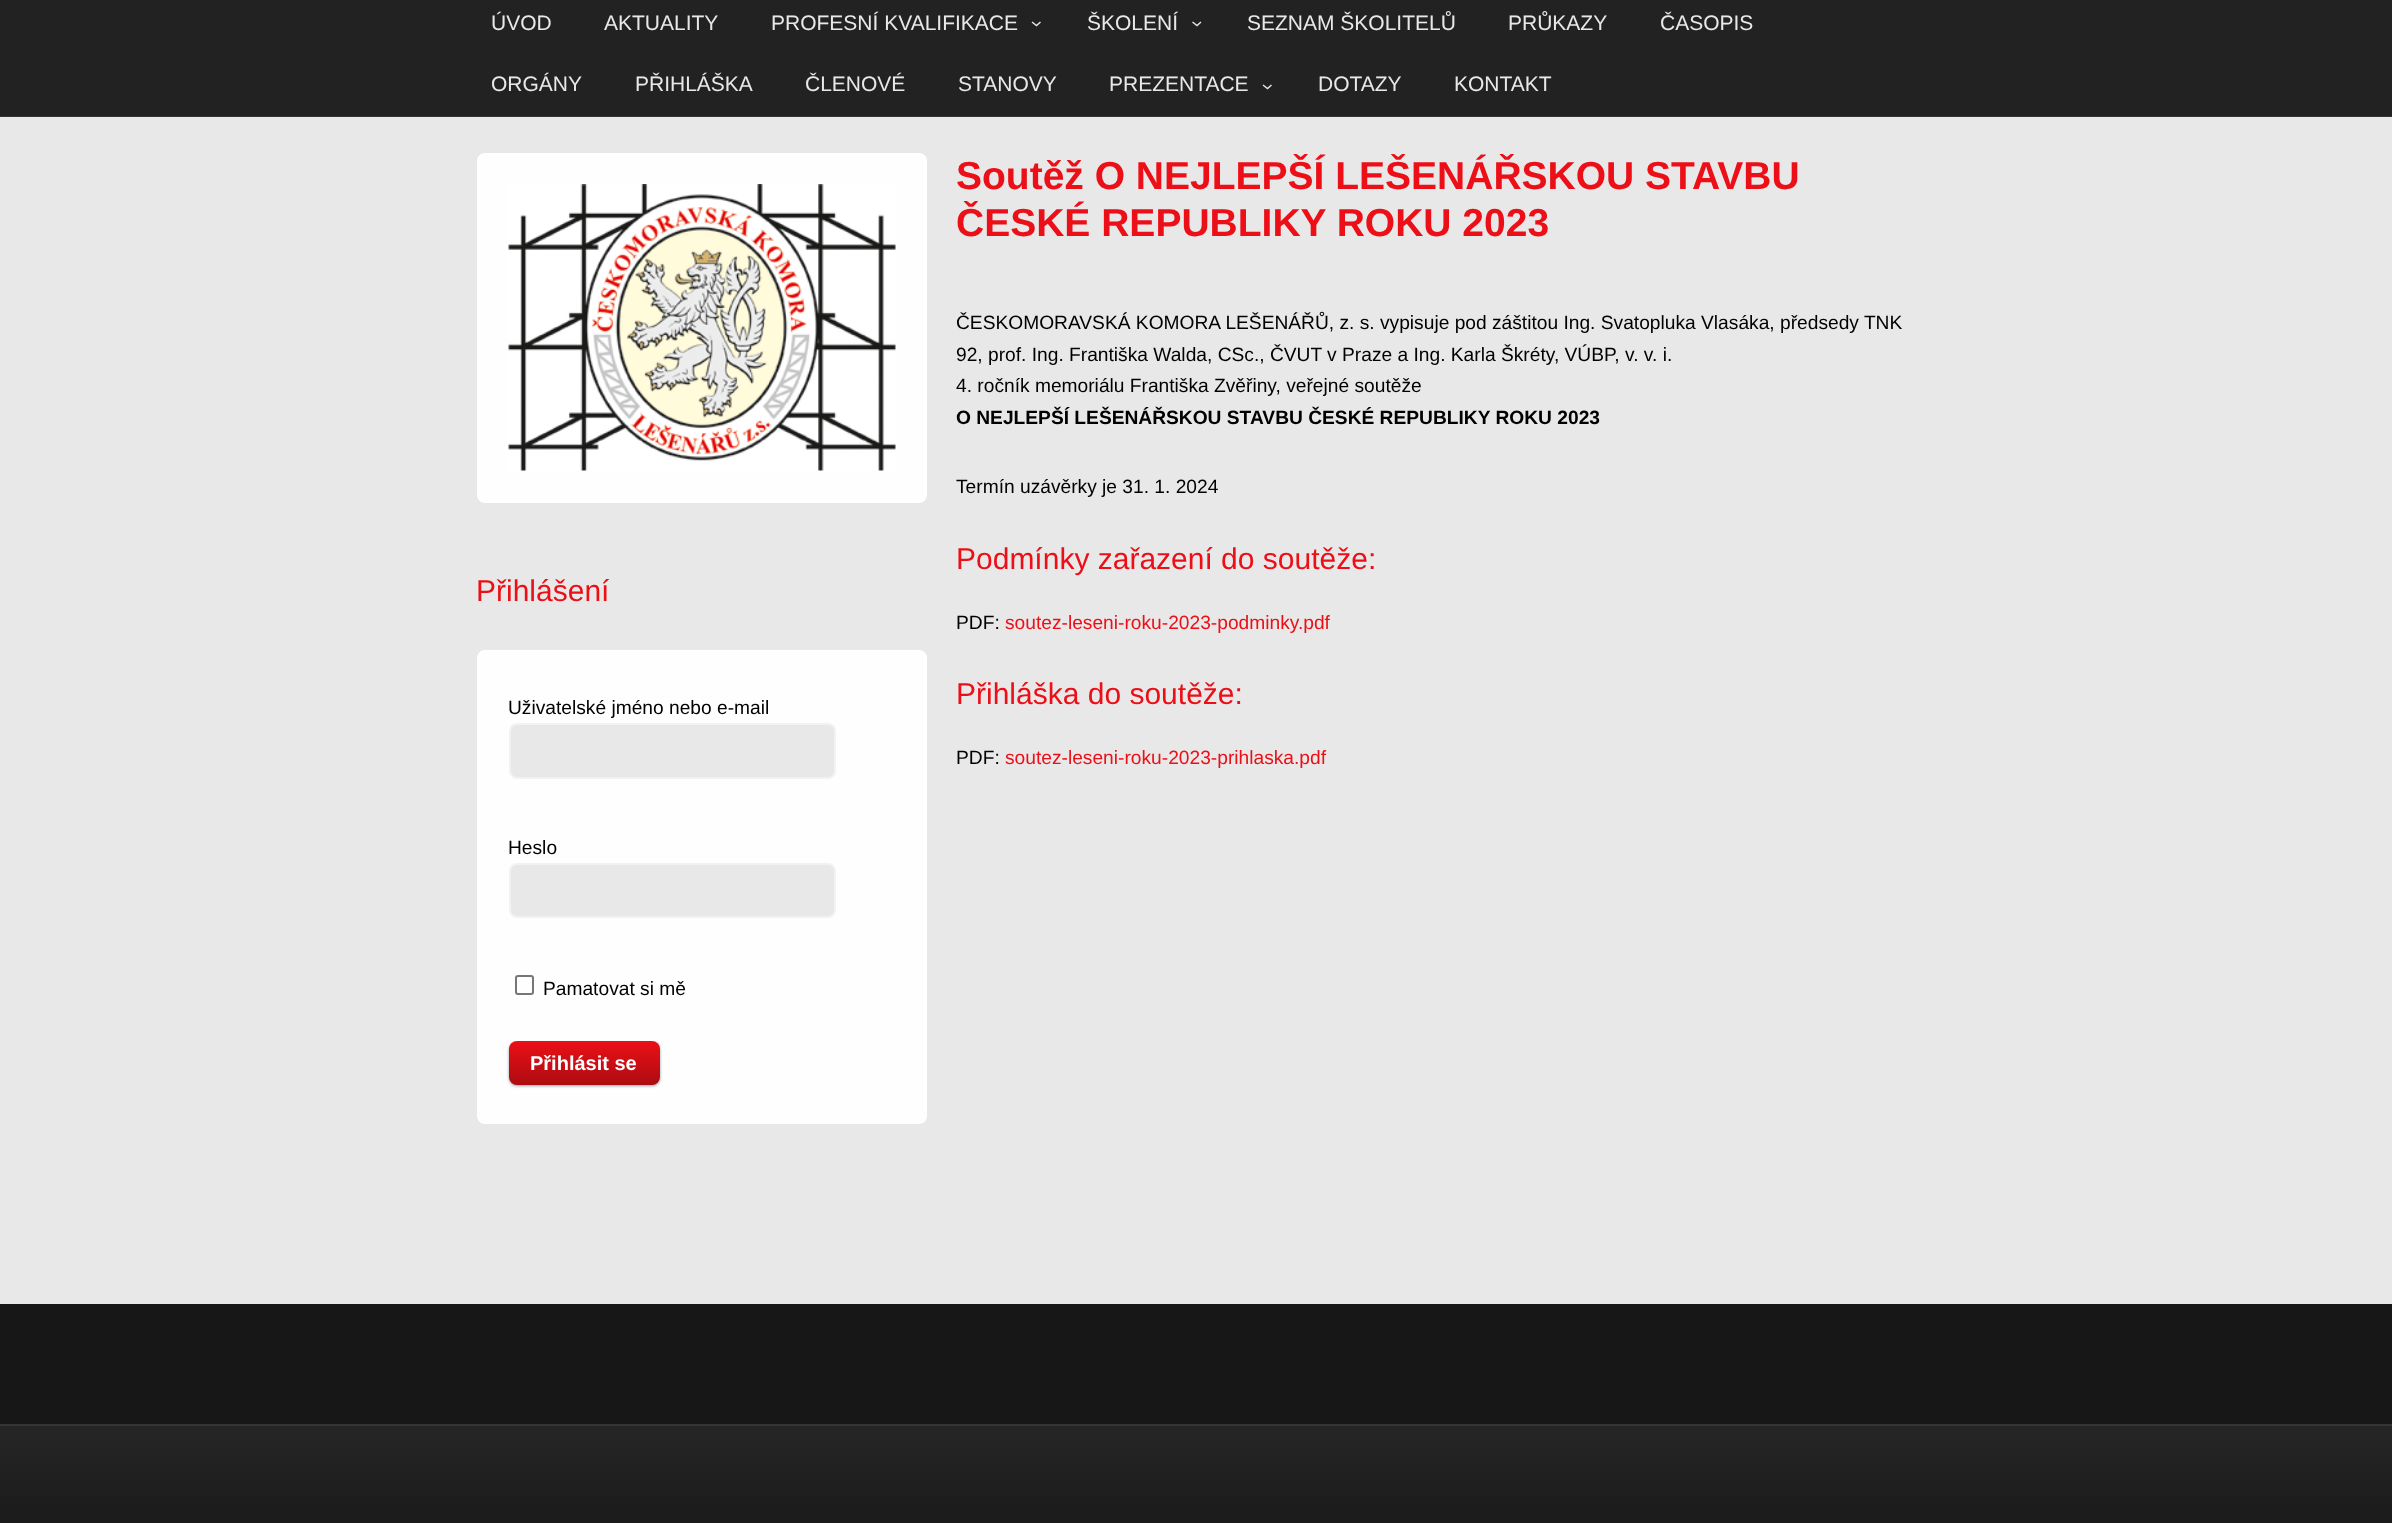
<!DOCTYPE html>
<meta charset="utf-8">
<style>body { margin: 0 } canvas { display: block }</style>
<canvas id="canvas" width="2392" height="1523"></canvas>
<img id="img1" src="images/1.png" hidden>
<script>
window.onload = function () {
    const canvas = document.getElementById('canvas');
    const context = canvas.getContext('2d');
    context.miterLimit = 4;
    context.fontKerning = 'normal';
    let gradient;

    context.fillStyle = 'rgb(232, 232, 232)';
    context.fillRect(0, 0, 2392, 1523);
    context.fillStyle = 'rgb(34, 34, 34)';
    context.fillRect(0, 0, 2392, 116);
    context.fillStyle = 'rgb(53, 53, 53)';
    context.fillRect(0, 116, 2392, 1);
    context.beginPath();
    context.moveTo(1032, 22);
    context.lineTo(1036.5, 25.5);
    context.lineTo(1040.5, 22);
    context.strokeStyle = 'rgb(232, 232, 232)';
    context.lineWidth = 1.4;
    context.stroke();
    context.beginPath();
    context.moveTo(1192.5, 22);
    context.lineTo(1197, 25.5);
    context.lineTo(1201, 22);
    context.stroke();
    context.beginPath();
    context.moveTo(1263, 85);
    context.lineTo(1267.5, 88.5);
    context.lineTo(1271.5, 85);
    context.stroke();
    context.fillStyle = 'rgb(254, 254, 254)';
    context.beginPath();
    context.roundRect(478, 154, 448, 348, 7);
    context.fill();
    context.strokeStyle = 'rgb(255, 255, 255)';
    context.lineWidth = 2;
    context.stroke();
    context.drawImage(document.getElementById('img1'), 508, 184, 388, 287);
    context.beginPath();
    context.roundRect(478, 651, 448, 472, 7);
    context.fill();
    context.stroke();
    context.fillStyle = 'rgb(232, 232, 232)';
    context.beginPath();
    context.roundRect(510, 724, 325, 54, 7);
    context.fill();
    context.strokeStyle = 'rgb(242, 242, 242)';
    context.stroke();
    context.beginPath();
    context.roundRect(510, 864, 325, 53, 7);
    context.fill();
    context.stroke();
    context.beginPath();
    context.roundRect(516, 976, 17, 18, 2);
    context.strokeStyle = 'rgb(118, 118, 118)';
    context.stroke();
    context.fillStyle = 'rgb(147, 157, 162)';
    context.filter = 'blur(1.5px)';
    context.beginPath();
    context.roundRect(509, 1043, 151, 43, 8);
    context.fill();
    context.filter = 'none';
    gradient = context.createLinearGradient(584, 1041, 584, 1085);
    gradient.addColorStop(0, 'rgb(236, 15, 23)');
    gradient.addColorStop(1, 'rgb(172, 12, 17)');
    context.fillStyle = gradient;
    context.beginPath();
    context.roundRect(509, 1041, 151, 44, 8);
    context.fill();
    context.fillStyle = 'rgb(23, 23, 23)';
    context.fillRect(0, 1304, 2392, 120);
    gradient = context.createLinearGradient(1196, 1425, 1196, 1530);
    gradient.addColorStop(0, 'rgb(38, 38, 38)');
    gradient.addColorStop(1, 'rgb(26, 26, 26)');
    context.fillStyle = gradient;
    context.fillRect(0, 1426, 2392, 97);
    context.fillStyle = 'rgb(53, 53, 53)';
    context.fillRect(0, 1424, 2392, 2);
    context.font = '21px Liberation Sans';
    context.fillStyle = 'rgb(232, 232, 232)';
    context.fillText('ÚVOD', 491, 30);
    context.fillText('AKTUALITY', 604, 30);
    context.fillText('PROFESNÍ KVALIFIKACE', 771, 30);
    context.fillText('ŠKOLENÍ', 1087, 30);
    context.fillText('SEZNAM ŠKOLITELŮ', 1247, 30);
    context.fillText('PRŮKAZY', 1508, 30);
    context.fillText('ČASOPIS', 1660, 30);
    context.fillText('ORGÁNY', 491, 91);
    context.fillText('PŘIHLÁŠKA', 635, 91);
    context.fillText('ČLENOVÉ', 805, 91);
    context.fillText('STANOVY', 958, 91);
    context.fillText('PREZENTACE', 1109, 91);
    context.fillText('DOTAZY', 1318, 91);
    context.fillText('KONTAKT', 1454, 91);
    context.font = 'bold 39px Liberation Sans';
    context.fillStyle = 'rgb(236, 15, 23)';
    context.fillText('Soutěž O NEJLEPŠÍ LEŠENÁŘSKOU STAVBU', 956, 189);
    context.fillText('ČESKÉ REPUBLIKY ROKU 2023', 956, 236);
    context.font = '19.2px Liberation Sans';
    context.fillStyle = 'rgb(0, 0, 0)';
    context.fillText('ČESKOMORAVSKÁ KOMORA LEŠENÁŘŮ, z. s. vypisuje pod záštitou Ing. Svatopluka Vlasáka, předsedy TNK', 956, 329);
    context.fillText('92, prof. Ing. Františka Walda, CSc., ČVUT v Praze a Ing. Karla Škréty, VÚBP, v. v. i.', 956, 361);
    context.fillText('4. ročník memoriálu Františka Zvěřiny, veřejné soutěže', 956, 392);
    context.font = 'bold 19.2px Liberation Sans';
    context.fillText('O NEJLEPŠÍ LEŠENÁŘSKOU STAVBU ČESKÉ REPUBLIKY ROKU 2023', 956, 424);
    context.font = '19.2px Liberation Sans';
    context.fillText('Termín uzávěrky je 31. 1. 2024', 956, 493);
    context.font = '30px Liberation Sans';
    context.fillStyle = 'rgb(236, 15, 23)';
    context.fillText('Podmínky zařazení do soutěže:', 956, 569);
    context.font = '19.2px Liberation Sans';
    context.fillStyle = 'rgb(0, 0, 0)';
    context.fillText('PDF:', 956, 629);
    context.fillStyle = 'rgb(236, 15, 23)';
    context.fillText('soutez-leseni-roku-2023-podminky.pdf', 1005, 629);
    context.font = '30px Liberation Sans';
    context.fillText('Přihláška do soutěže:', 956, 704);
    context.font = '19.2px Liberation Sans';
    context.fillStyle = 'rgb(0, 0, 0)';
    context.fillText('PDF:', 956, 764);
    context.fillStyle = 'rgb(236, 15, 23)';
    context.fillText('soutez-leseni-roku-2023-prihlaska.pdf', 1005, 764);
    context.font = '30px Liberation Sans';
    context.fillText('Přihlášení', 476, 601);
    context.font = '19.2px Liberation Sans';
    context.fillStyle = 'rgb(0, 0, 0)';
    context.fillText('Uživatelské jméno nebo e-mail', 508, 714);
    context.fillText('Heslo', 508, 854);
    context.fillText('Pamatovat si mě', 543, 995);
    context.font = 'bold 20px Liberation Sans';
    context.fillStyle = 'rgb(254, 254, 254)';
    context.fillText('Přihlásit se', 530, 1070);
};
</script>
